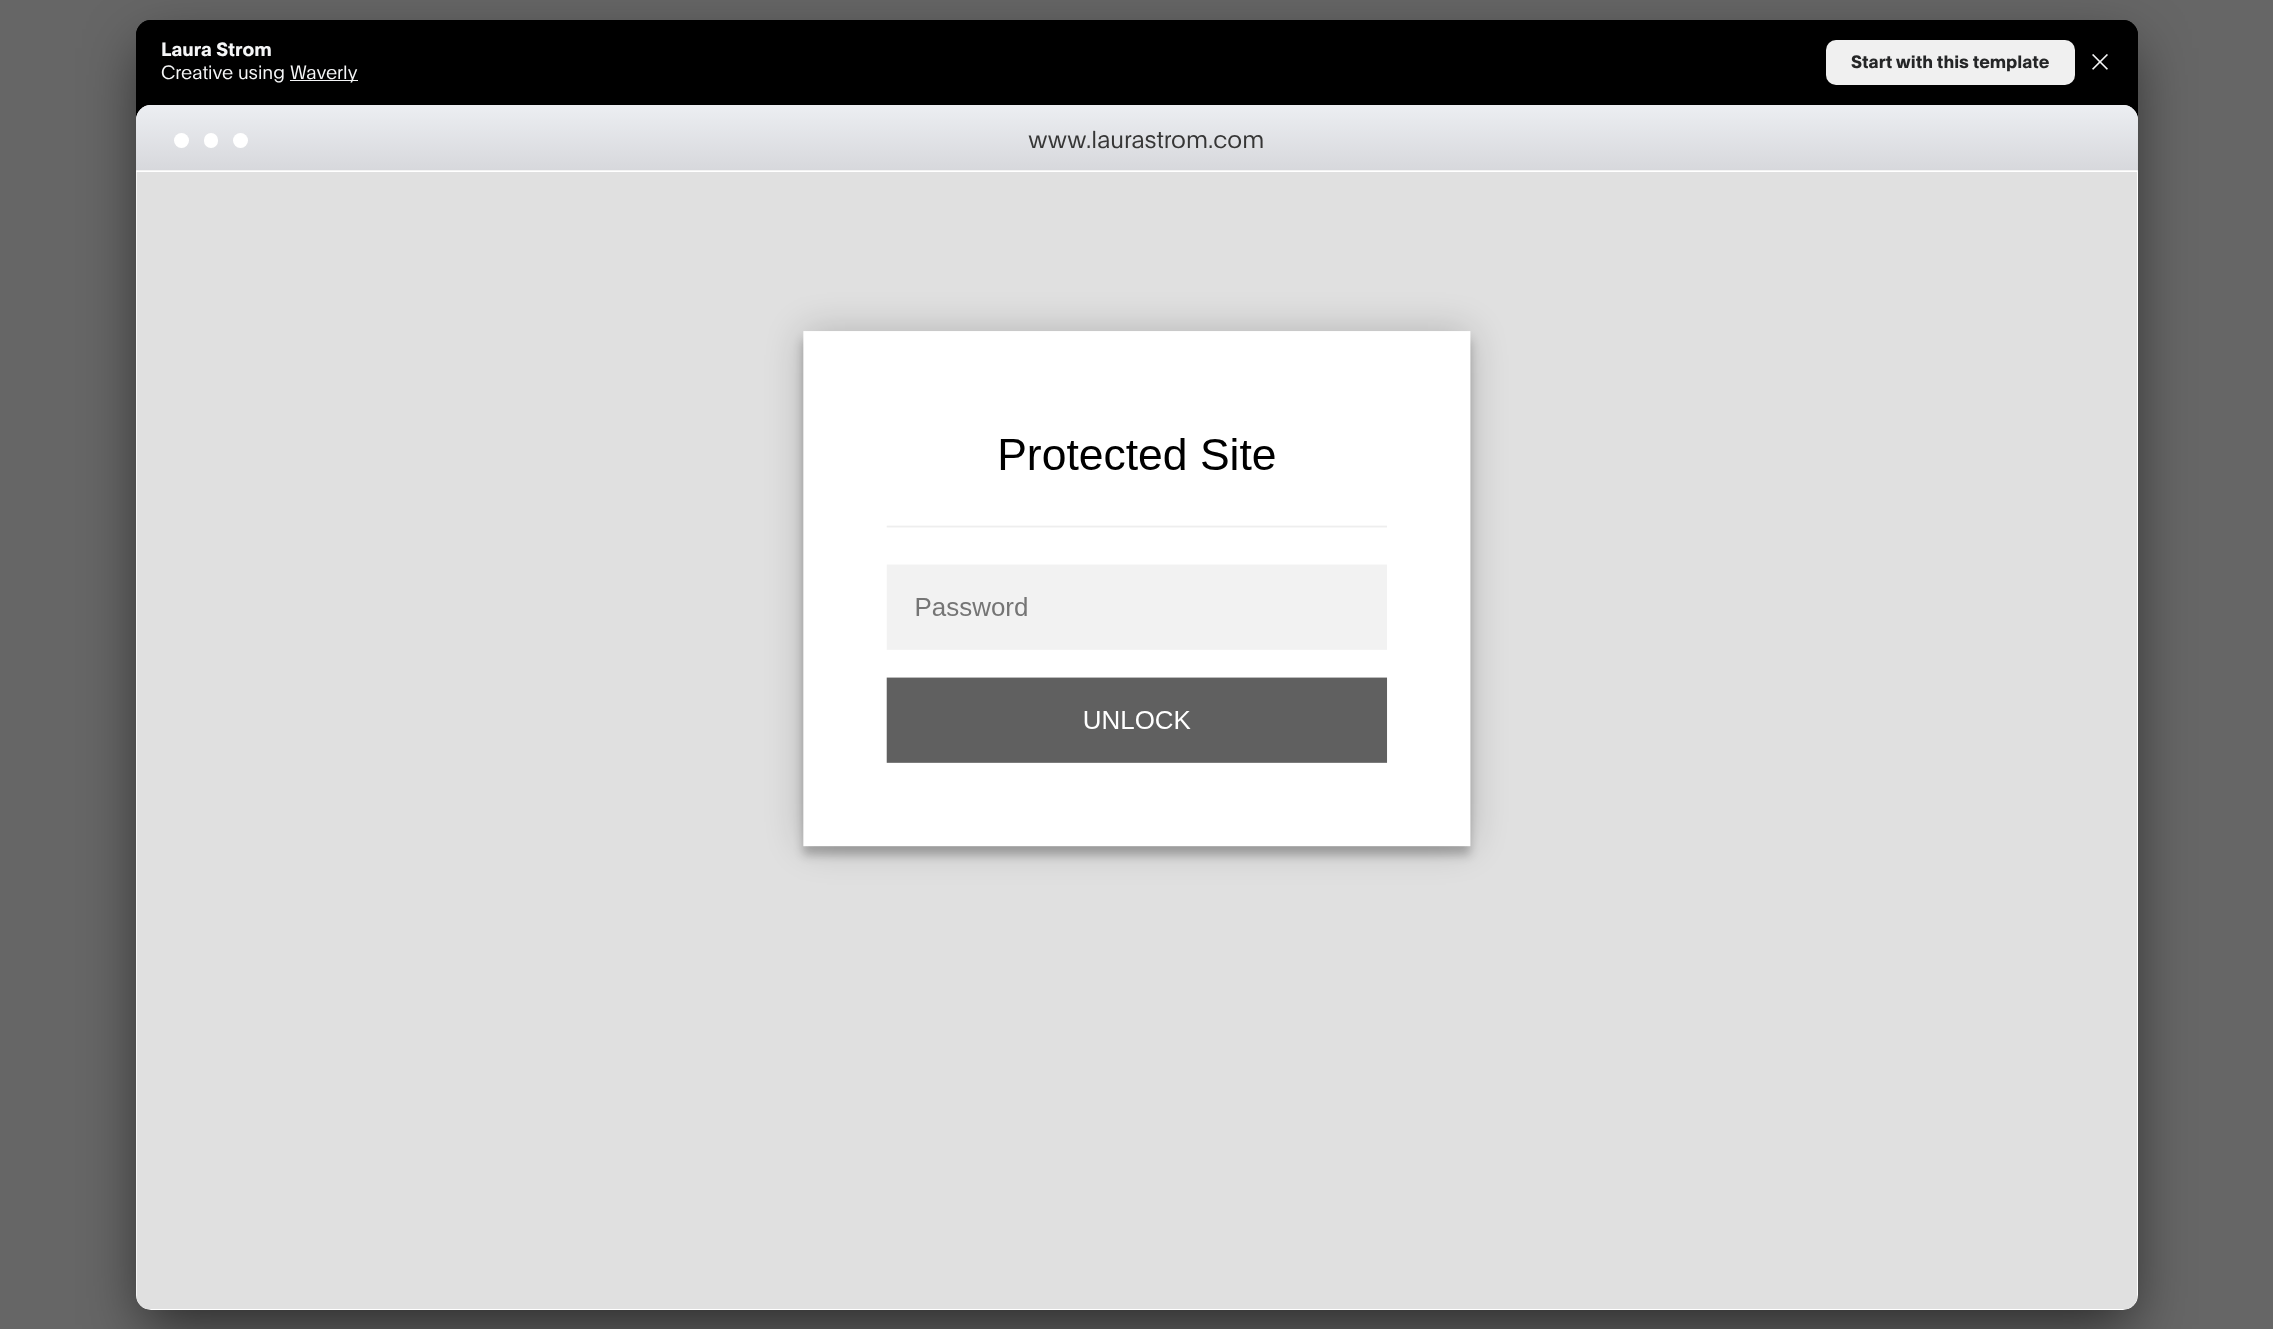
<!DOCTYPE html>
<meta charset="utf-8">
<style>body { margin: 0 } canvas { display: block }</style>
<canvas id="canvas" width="2273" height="1329"></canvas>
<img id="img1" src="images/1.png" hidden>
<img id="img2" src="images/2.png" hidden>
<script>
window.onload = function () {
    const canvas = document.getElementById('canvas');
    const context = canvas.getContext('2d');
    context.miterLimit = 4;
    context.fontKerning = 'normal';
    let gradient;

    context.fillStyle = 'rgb(102, 102, 102)';
    context.fillRect(0, 0, 2273, 1329);
    context.fillStyle = 'rgba(0, 0, 0, 0.6)';
    context.filter = 'blur(29px)';
    context.beginPath();
    context.rect(143, 48, 1988, 1277);
    context.fill();
    context.filter = 'none';
    context.fillStyle = 'rgb(0, 0, 0)';
    context.beginPath();
    context.roundRect(136, 20, 2002, 1290, 15);
    context.fill();
    context.beginPath();
    context.roundRect(136, 20, 2002, 85, 15);
    context.fill();
    context.fillStyle = 'rgb(245, 246, 247)';
    context.fillRect(290, 80, 68, 1);
    context.fillStyle = 'rgb(240, 240, 240)';
    context.beginPath();
    context.roundRect(1826, 40, 249, 45, 10);
    context.fill();
    context.drawImage(document.getElementById('img1'), 2092, 54, 16, 16);
    context.fillStyle = 'rgb(255, 255, 255)';
    context.beginPath();
    context.roundRect(136, 105, 2002, 1205, 15);
    context.fill();
    gradient = context.createLinearGradient(1137, 105, 1137, 170);
    gradient.addColorStop(0, 'rgb(236, 238, 242)');
    gradient.addColorStop(1, 'rgb(215, 216, 220)');
    context.fillStyle = gradient;
    context.beginPath();
    context.roundRect(136, 105, 2002, 65, [15, 15, 0, 0]);
    context.fill();
    context.fillStyle = 'rgb(243, 243, 243)';
    context.fillRect(136, 170, 2002, 1);
    context.fillStyle = 'rgb(255, 255, 255)';
    context.beginPath();
    context.arc(181.5, 140.5, 7.5, 0, 2 * Math.PI);
    context.fill();
    context.beginPath();
    context.roundRect(204, 133, 14, 15, 7);
    context.fill();
    context.beginPath();
    context.arc(240.5, 140.5, 7.5, 0, 2 * Math.PI);
    context.fill();
    context.drawImage(document.getElementById('img2'), 136, 172, 2001, 1137);
    context.font = 'bold 18.75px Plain';
    context.fillStyle = 'rgb(245, 246, 247)';
    context.fillText('Laura Strom', 161, 56);
    context.font = '18.75px Plain';
    context.fillText('Creative using', 161, 79);
    context.fillText('Waverly', 290, 79);
    context.font = 'bold 17.5px Plain';
    context.fillStyle = 'rgb(37, 38, 39)';
    context.fillText('Start with this template', 1851, 68);
    context.font = '24px Plain';
    context.fillStyle = 'rgb(54, 54, 54)';
    context.fillText('www.laurastrom.com', 1028, 148);
};
</script>
